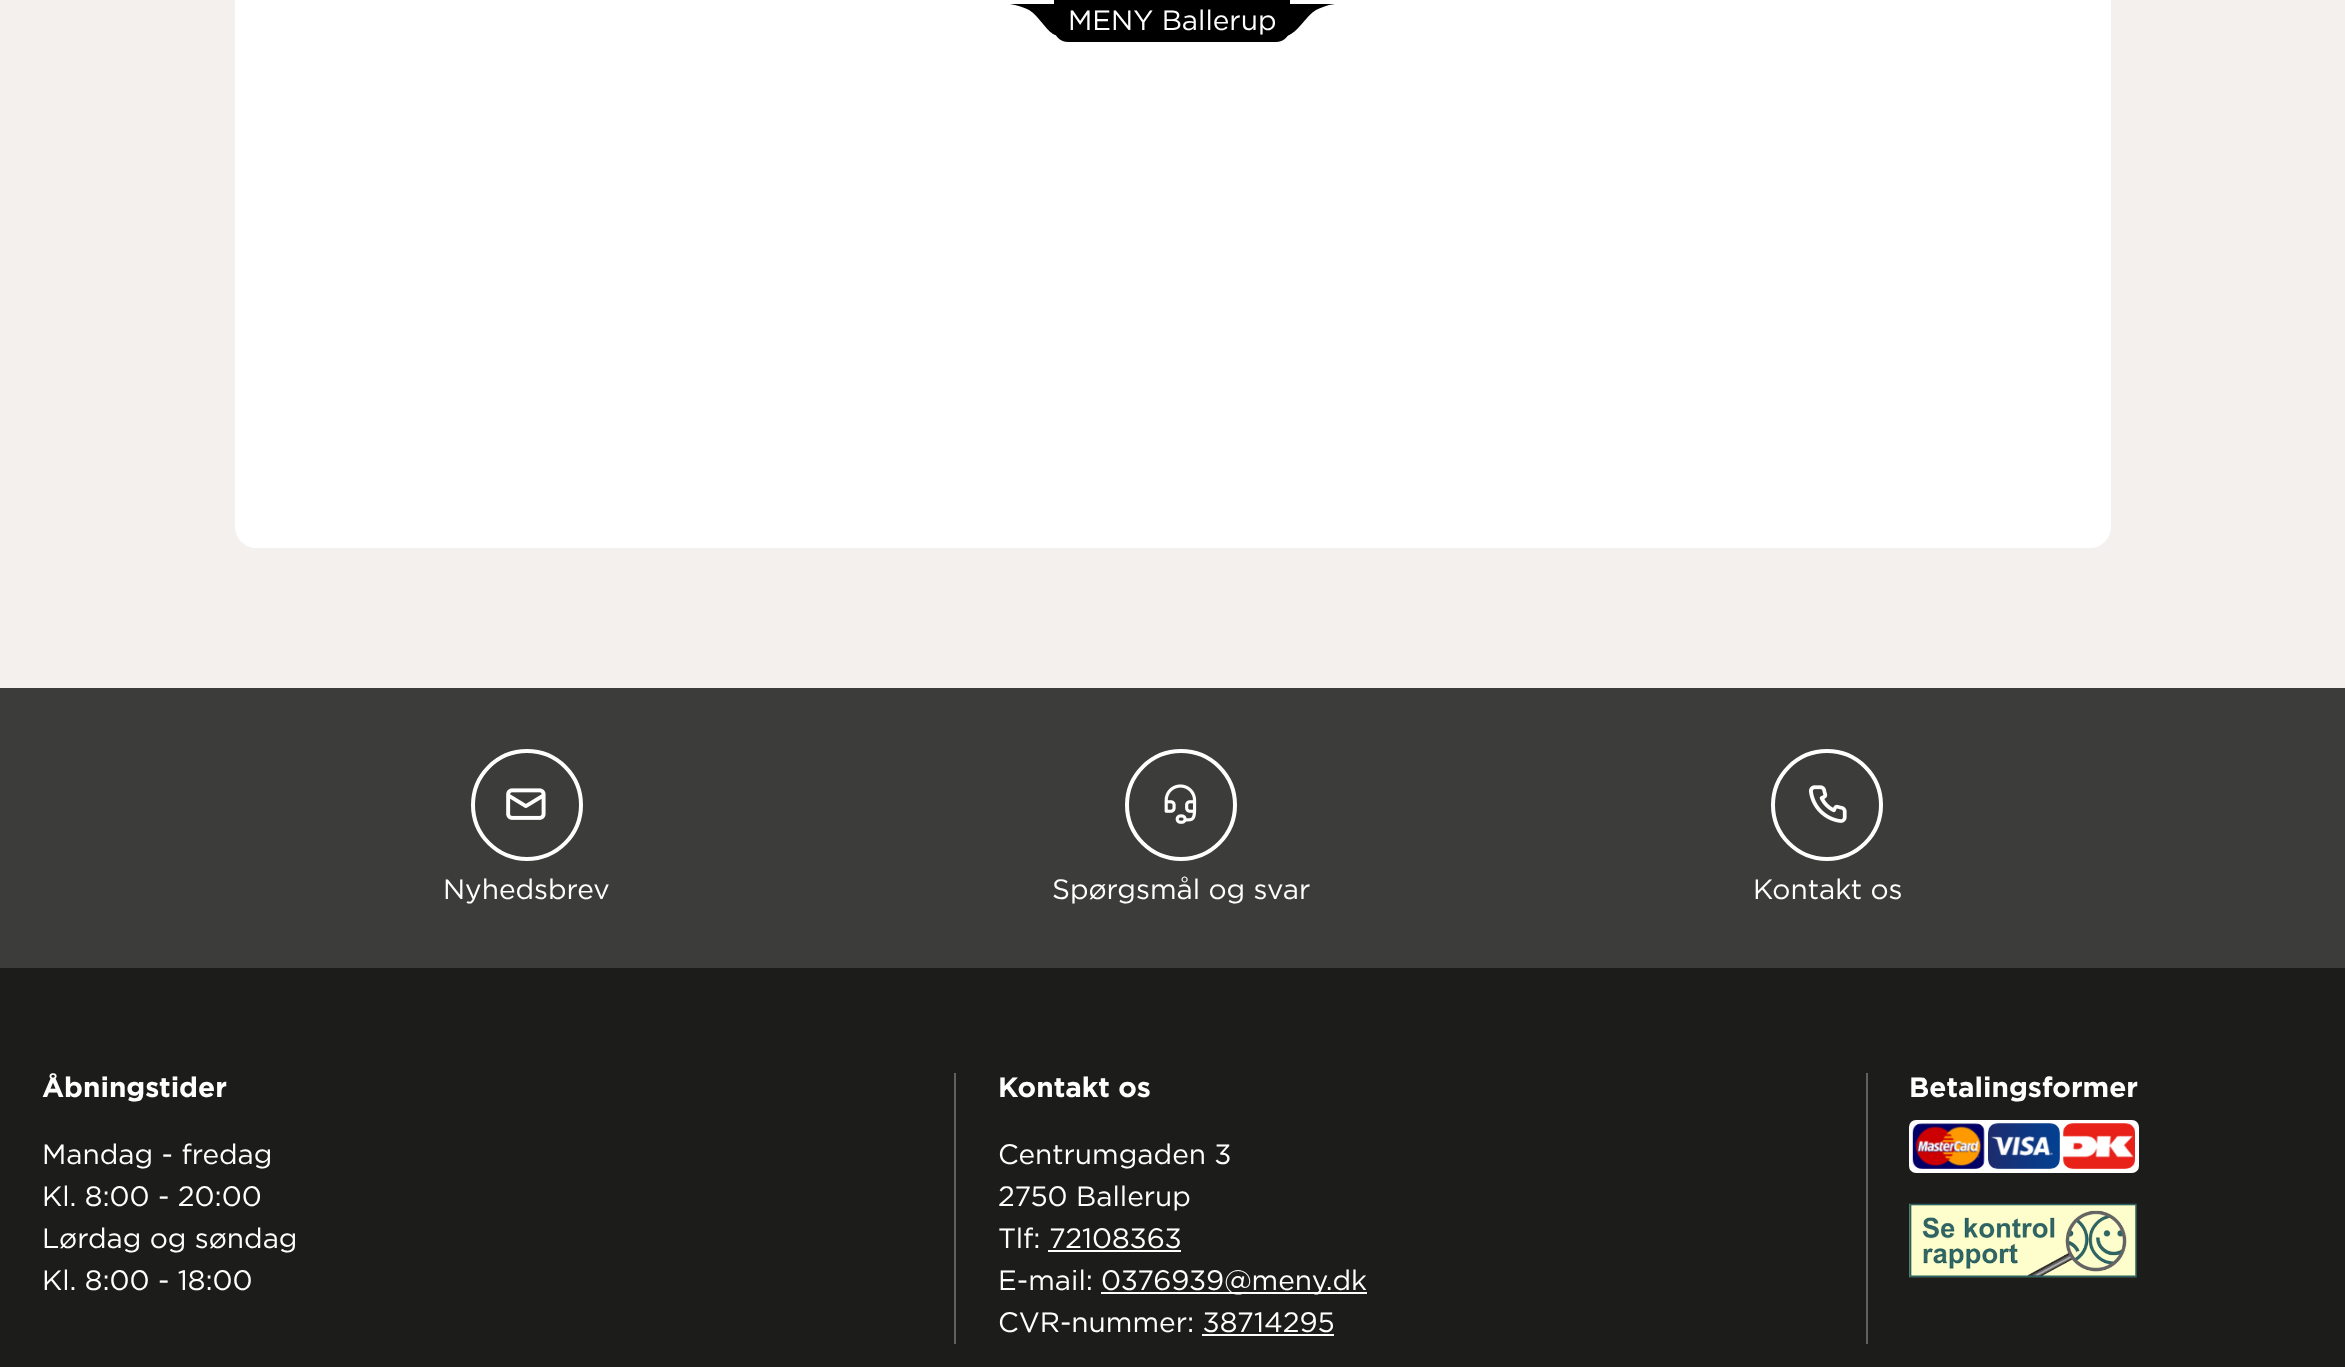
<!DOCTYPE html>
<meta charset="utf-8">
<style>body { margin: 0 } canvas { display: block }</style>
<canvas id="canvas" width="2345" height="1367"></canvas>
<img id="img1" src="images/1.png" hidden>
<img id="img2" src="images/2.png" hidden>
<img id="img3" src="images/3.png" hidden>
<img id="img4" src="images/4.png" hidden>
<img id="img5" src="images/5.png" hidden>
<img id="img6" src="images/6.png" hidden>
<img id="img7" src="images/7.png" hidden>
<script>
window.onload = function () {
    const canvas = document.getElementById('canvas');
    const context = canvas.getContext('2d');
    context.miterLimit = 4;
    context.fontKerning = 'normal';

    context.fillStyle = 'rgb(28, 28, 26)';
    context.fillRect(0, 0, 2345, 1367);
    context.fillStyle = 'rgb(244, 240, 238)';
    context.fillRect(0, 0, 2345, 688);
    context.fillStyle = 'rgb(255, 255, 255)';
    context.beginPath();
    context.roundRect(235, -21, 1876, 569, 21);
    context.fill();
    context.fillStyle = 'rgb(0, 0, 0)';
    context.beginPath();
    context.roundRect(1054, 0, 236, 42, [0, 0, 14, 14]);
    context.fill();
    context.save();
    context.beginPath();
    context.rect(1008, 4, 56, 34);
    context.clip();
    context.beginPath();
    context.moveTo(1065, 21);
    context.lineTo(1065, 38);
    context.bezierCurveTo(1061, 37, 1057, 36, 1053, 34);
    context.bezierCurveTo(1044, 28, 1039, 16, 1029, 10);
    context.bezierCurveTo(1025, 8, 1020, 6, 1015, 5);
    context.lineTo(1010, 4);
    context.lineTo(1065, 4);
    context.lineTo(1065, 21);
    context.fill('evenodd');
    context.restore();
    context.save();
    context.beginPath();
    context.rect(1281, 4, 54, 34);
    context.clip();
    context.beginPath();
    context.moveTo(1280, 21);
    context.lineTo(1280, 38);
    context.bezierCurveTo(1284, 37, 1288, 36, 1291, 34);
    context.bezierCurveTo(1301, 28, 1306, 16, 1316, 10);
    context.bezierCurveTo(1320, 8, 1325, 6, 1329, 5);
    context.lineTo(1335, 4);
    context.lineTo(1280, 4);
    context.lineTo(1280, 21);
    context.fill('evenodd');
    context.restore();
    context.fillStyle = 'rgb(60, 60, 59)';
    context.fillRect(0, 688, 2345, 280);
    context.beginPath();
    context.arc(527, 805, 54, 0, 2 * Math.PI);
    context.strokeStyle = 'rgb(255, 255, 255)';
    context.lineWidth = 4;
    context.stroke();
    context.drawImage(document.getElementById('img1'), 506, 788, 40, 32);
    context.beginPath();
    context.arc(1181, 805, 54, 0, 2 * Math.PI);
    context.stroke();
    context.drawImage(document.getElementById('img2'), 1164, 784, 33, 40);
    context.beginPath();
    context.arc(1827, 805, 54, 0, 2 * Math.PI);
    context.stroke();
    context.drawImage(document.getElementById('img3'), 1808, 785, 39, 38);
    context.fillStyle = 'rgb(95, 96, 97)';
    context.fillRect(954, 1073, 2, 271);
    context.fillStyle = 'rgb(255, 255, 255)';
    context.fillRect(1048, 1250, 133, 2);
    context.fillRect(1101, 1292, 266, 2);
    context.fillRect(1202, 1334, 132, 2);
    context.fillStyle = 'rgb(95, 96, 97)';
    context.fillRect(1866, 1073, 2, 271);
    context.fillStyle = 'rgb(255, 255, 255)';
    context.beginPath();
    context.roundRect(1909, 1120, 230, 53, 7);
    context.fill();
    context.drawImage(document.getElementById('img4'), 1912, 1123, 73, 46);
    context.drawImage(document.getElementById('img5'), 1988, 1123, 72, 46);
    context.drawImage(document.getElementById('img6'), 2063, 1123, 72, 46);
    context.drawImage(document.getElementById('img7'), 1909, 1203, 228, 75);
    context.font = '28px Gotham';
    context.fillText('MENY Ballerup', 1068, 30);
    context.fillText('Nyhedsbrev', 443, 899);
    context.fillText('Spørgsmål og svar', 1052, 899);
    context.fillText('Kontakt os', 1753, 899);
    context.font = 'bold 28px Gotham';
    context.fillText('Åbningstider', 42, 1097);
    context.font = '28px Gotham';
    context.fillText('Mandag - fredag', 42, 1164);
    context.fillText('Kl. 8:00 - 20:00', 42, 1206);
    context.fillText('Lørdag og søndag', 42, 1248);
    context.fillText('Kl. 8:00 - 18:00', 42, 1290);
    context.font = 'bold 28px Gotham';
    context.fillText('Kontakt os', 998, 1097);
    context.font = '28px Gotham';
    context.fillText('Centrumgaden 3', 998, 1164);
    context.fillText('2750 Ballerup', 998, 1206);
    context.fillText('Tlf: 72108363', 998, 1248);
    context.fillText('E-mail:', 998, 1290);
    context.fillText('0376939@meny.dk', 1101, 1290);
    context.fillText('CVR-nummer: 38714295', 998, 1332);
    context.font = 'bold 28px Gotham';
    context.fillText('Betalingsformer', 1909, 1097);
};
</script>
